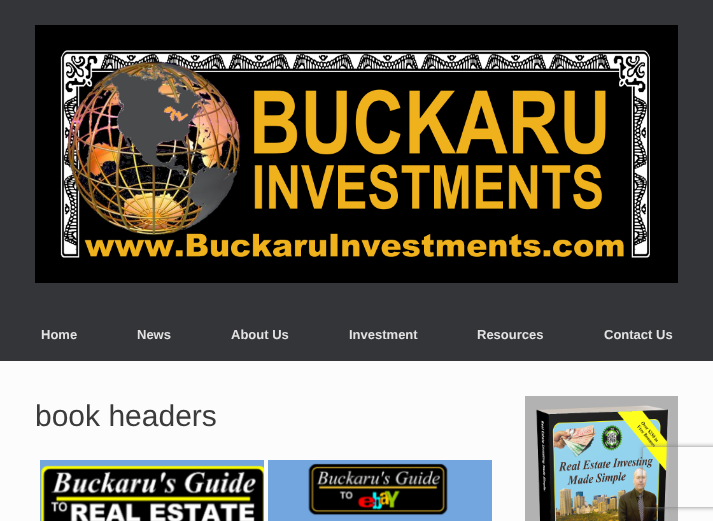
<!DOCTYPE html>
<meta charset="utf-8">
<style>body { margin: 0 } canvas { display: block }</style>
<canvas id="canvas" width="713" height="521"></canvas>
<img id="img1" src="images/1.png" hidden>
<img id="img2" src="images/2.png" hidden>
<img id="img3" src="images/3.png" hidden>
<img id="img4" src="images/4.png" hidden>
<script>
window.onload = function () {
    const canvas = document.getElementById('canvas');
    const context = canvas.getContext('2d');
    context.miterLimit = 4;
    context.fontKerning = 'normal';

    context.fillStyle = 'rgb(52, 53, 57)';
    context.fillRect(0, 0, 713, 521);
    context.drawImage(document.getElementById('img1'), 35, 25, 643, 258);
    context.fillStyle = 'rgb(252, 252, 252)';
    context.fillRect(0, 361, 713, 160);
    context.drawImage(document.getElementById('img2'), 40, 460, 224, 61);
    context.drawImage(document.getElementById('img3'), 268, 460, 224, 61);
    context.drawImage(document.getElementById('img4'), 525, 396, 153, 125);
    context.save();
    context.beginPath();
    context.moveTo(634, 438);
    context.lineTo(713, 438);
    context.lineTo(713, 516);
    context.lineTo(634, 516);
    context.closePath();
    context.moveTo(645, 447);
    context.lineTo(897, 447);
    context.bezierCurveTo(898, 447, 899, 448, 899, 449);
    context.lineTo(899, 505);
    context.bezierCurveTo(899, 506, 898, 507, 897, 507);
    context.lineTo(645, 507);
    context.bezierCurveTo(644, 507, 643, 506, 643, 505);
    context.lineTo(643, 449);
    context.bezierCurveTo(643, 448, 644, 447, 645, 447);
    context.closePath();
    context.clip('evenodd');
    context.fillStyle = 'rgb(128, 128, 128)';
    context.filter = 'blur(2.5px)';
    context.beginPath();
    context.roundRect(643, 447, 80, 60, 2);
    context.fill();
    context.filter = 'none';
    context.restore();
    context.font = 'bold 13px Liberation Sans';
    context.fillStyle = 'rgb(226, 226, 226)';
    context.fillText('Home', 41, 339);
    context.fillText('News', 137, 339);
    context.fillText('About Us', 231, 339);
    context.fillText('Investment', 349, 339);
    context.fillText('Resources', 477, 339);
    context.fillText('Contact Us', 604, 339);
    context.font = '30px Liberation Sans';
    context.fillStyle = 'rgb(59, 59, 59)';
    context.fillText('book headers', 35, 426);
};
</script>
